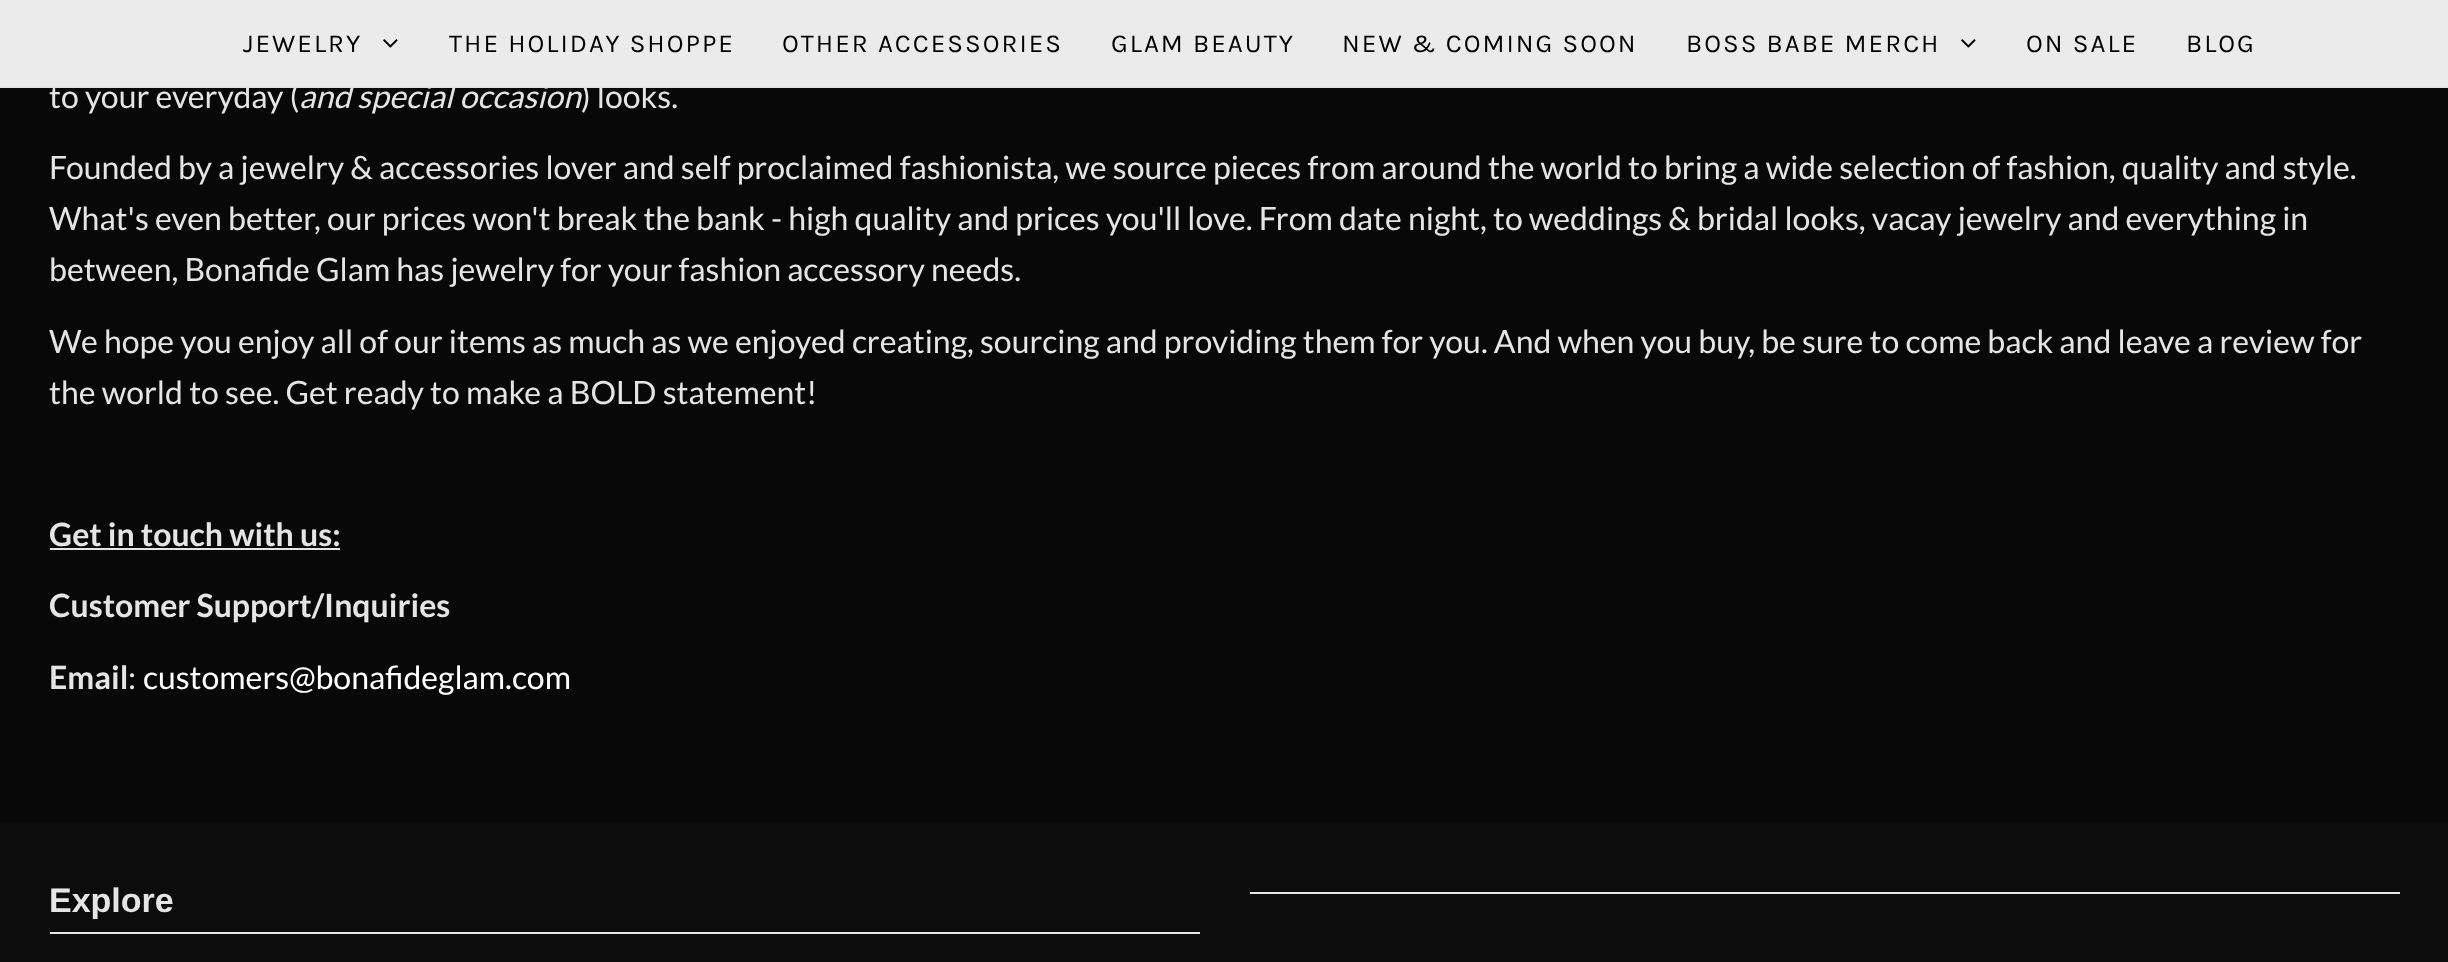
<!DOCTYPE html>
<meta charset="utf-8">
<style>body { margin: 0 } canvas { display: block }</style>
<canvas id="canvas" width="2448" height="962"></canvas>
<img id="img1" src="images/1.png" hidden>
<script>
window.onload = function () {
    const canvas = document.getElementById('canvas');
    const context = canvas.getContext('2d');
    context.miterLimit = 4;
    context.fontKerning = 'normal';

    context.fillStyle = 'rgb(8, 8, 8)';
    context.fillRect(0, 0, 2448, 962);
    context.fillStyle = 'rgb(229, 229, 229)';
    context.fillRect(0, 86, 2448, 2);
    context.fillRect(50, 548, 290, 2);
    context.fillStyle = 'rgb(13, 12, 12)';
    context.fillRect(0, 822, 2448, 140);
    context.fillStyle = 'rgb(229, 229, 229)';
    context.fillRect(50, 932, 1150, 2);
    context.fillRect(1250, 892, 1150, 2);
    context.font = '32px Lato';
    context.fillText('to your everyday (', 49, 108);
    context.font = 'italic 32px Lato';
    context.fillText('and special occasion', 299, 108);
    context.font = '32px Lato';
    context.fillText(') looks.', 581, 108);
    context.fillStyle = 'rgb(235, 235, 235)';
    context.fillRect(0, 0, 2448, 86);
    context.letterSpacing = '2px';
    context.font = '26px Karla';
    context.fillStyle = 'rgb(0, 0, 0)';
    context.fillText('BLOG', 2186, 52);
    context.fillText('ON SALE', 2026, 52);
    context.drawImage(document.getElementById('img1'), 1961, 39, 15, 9);
    context.fillText('BOSS BABE MERCH', 1686, 52);
    context.fillText('NEW & COMING SOON', 1342, 52);
    context.fillText('GLAM BEAUTY', 1111, 52);
    context.fillText('OTHER ACCESSORIES', 782, 52);
    context.fillText('THE HOLIDAY SHOPPE', 449, 52);
    context.drawImage(document.getElementById('img1'), 383, 39, 15, 9);
    context.fillText('JEWELRY', 243, 52);
    context.letterSpacing = '0px';
    context.font = '32px Lato';
    context.fillStyle = 'rgb(229, 229, 229)';
    context.fillText('Founded by a jewelry & accessories lover and self proclaimed fashionista, we source pieces from around the world to bring a wide selection of fashion, quality and style.', 49, 179);
    context.fillText('What\'s even better, our prices won\'t break the bank - high quality and prices you\'ll love. From date night, to weddings & bridal looks, vacay jewelry and everything in', 49, 230);
    context.fillText('between, Bonafide Glam has jewelry for your fashion accessory needs.', 49, 281);
    context.fillText('We hope you enjoy all of our items as much as we enjoyed creating, sourcing and providing them for you. And when you buy, be sure to come back and leave a review for', 49, 353);
    context.fillText('the world to see. Get ready to make a BOLD statement!', 49, 404);
    context.font = 'bold 32px Lato';
    context.fillText('Get in touch with us:', 49, 546);
    context.fillText('Customer Support/Inquiries', 49, 617);
    context.fillText('Email', 49, 689);
    context.font = '32px Lato';
    context.fillText(':', 128, 689);
    context.fillStyle = 'rgb(255, 255, 255)';
    context.fillText('customers@bonafideglam.com', 143, 689);
    context.font = 'bold 34px Liberation Sans';
    context.fillStyle = 'rgb(229, 229, 229)';
    context.fillText('Explore', 49, 912);
};
</script>
